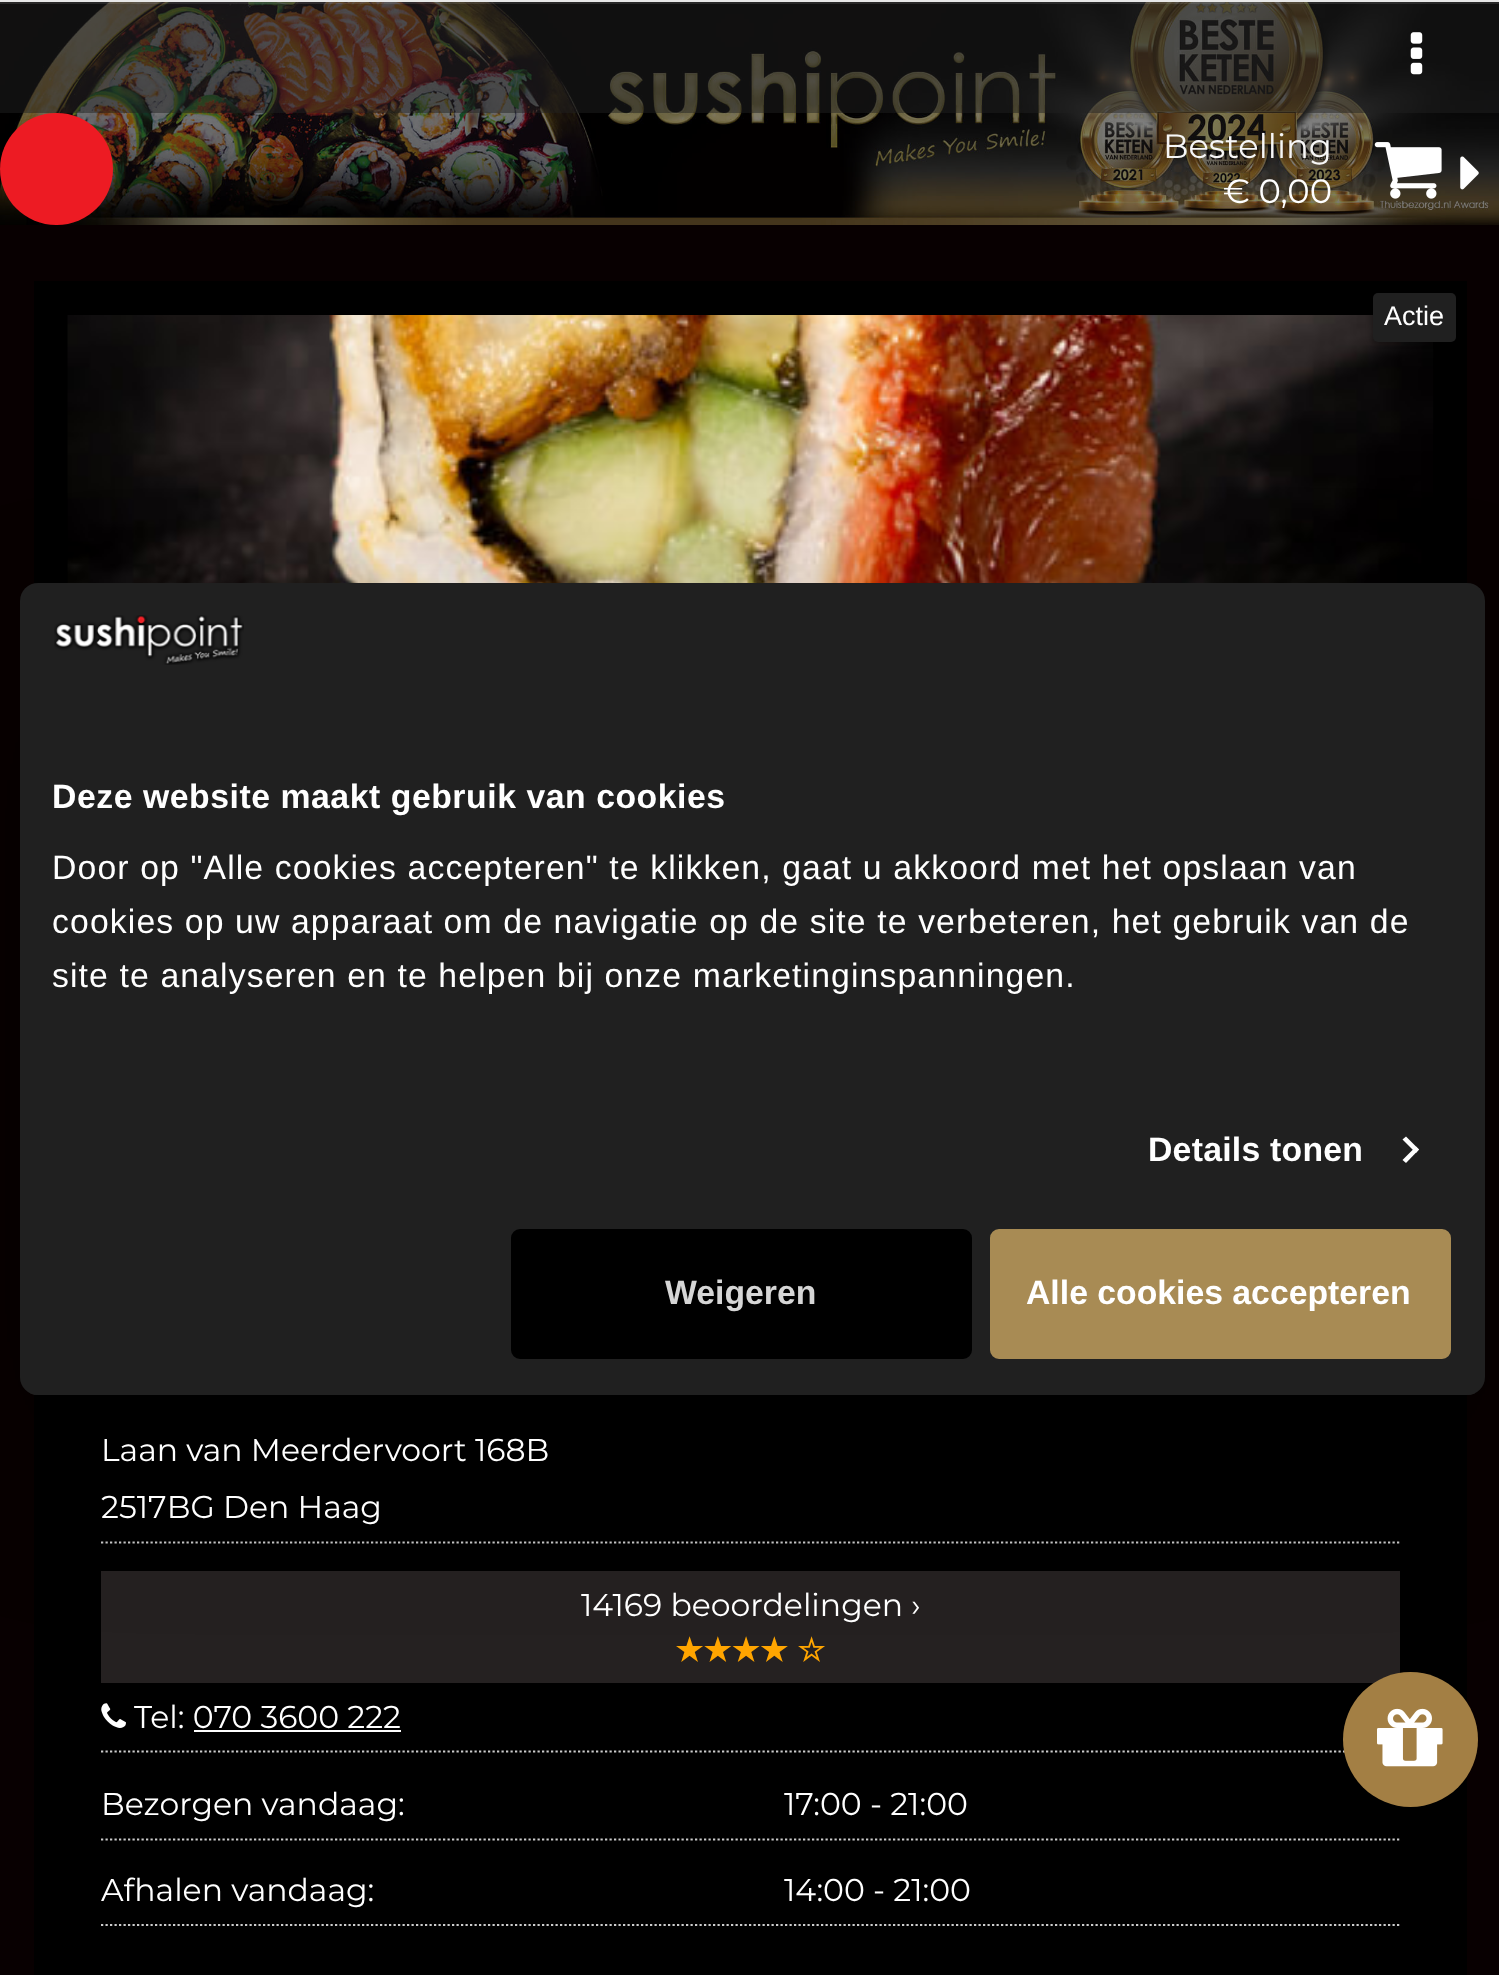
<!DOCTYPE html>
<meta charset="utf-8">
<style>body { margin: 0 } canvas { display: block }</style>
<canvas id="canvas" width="1499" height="1975"></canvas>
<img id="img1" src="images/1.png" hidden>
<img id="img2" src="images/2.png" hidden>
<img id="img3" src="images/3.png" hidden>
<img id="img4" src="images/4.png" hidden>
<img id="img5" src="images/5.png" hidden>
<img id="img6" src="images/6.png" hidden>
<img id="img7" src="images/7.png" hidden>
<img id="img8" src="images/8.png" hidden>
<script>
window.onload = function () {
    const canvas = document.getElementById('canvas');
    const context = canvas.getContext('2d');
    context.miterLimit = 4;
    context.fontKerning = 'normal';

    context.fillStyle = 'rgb(8, 0, 1)';
    context.fillRect(0, 0, 1499, 1975);
    context.drawImage(document.getElementById('img1'), 0, 2, 1499, 223);
    context.fillStyle = 'rgba(21, 21, 21, 0.75)';
    context.fillRect(0, 2, 1499, 111);
    context.drawImage(document.getElementById('img2'), 1410, 32, 13, 43);
    context.fillStyle = 'rgba(255, 255, 255, 0.1)';
    context.fillRect(0, 2, 1499, 2);
    context.fillStyle = 'rgb(231, 231, 231)';
    context.fillRect(0, 0, 1499, 2);
    context.fillStyle = 'rgba(0, 0, 0, 0.5)';
    context.fillRect(0, 113, 1499, 112);
    context.fillStyle = 'rgb(237, 27, 35)';
    context.beginPath();
    context.roundRect(0, 113, 113, 112, 56);
    context.fill();
    context.drawImage(document.getElementById('img3'), 1374, 142, 68, 57);
    context.drawImage(document.getElementById('img4'), 1460, 156, 19, 34);
    context.fillStyle = 'rgb(0, 0, 0)';
    context.fillRect(34, 281, 1433, 1694);
    context.drawImage(document.getElementById('img5'), 67, 315, 1367, 268);
    context.fillStyle = 'rgba(0, 0, 0, 0.25)';
    context.filter = 'blur(2px)';
    context.beginPath();
    context.roundRect(1370, 290, 88, 54, 7);
    context.fill();
    context.filter = 'none';
    context.fillStyle = 'rgb(32, 32, 32)';
    context.beginPath();
    context.roundRect(1373, 293, 83, 49, 5);
    context.fill();
    context.beginPath();
    context.moveTo(101, 1542.5);
    context.lineTo(1399.5, 1542.5);
    context.strokeStyle = 'rgb(204, 204, 204)';
    context.lineWidth = 2.2;
    context.setLineDash([2.25, 2.25]);
    context.stroke();
    context.fillStyle = 'rgb(37, 33, 33)';
    context.fillRect(101, 1571, 1299, 112);
    context.drawImage(document.getElementById('img6'), 101, 1703, 25, 25);
    context.fillStyle = 'rgb(255, 255, 255)';
    context.fillRect(194, 1730, 207, 2);
    context.beginPath();
    context.moveTo(101, 1751.5);
    context.lineTo(1399.5, 1751.5);
    context.stroke();
    context.beginPath();
    context.moveTo(101, 1839.5);
    context.lineTo(1399.5, 1839.5);
    context.stroke();
    context.beginPath();
    context.moveTo(101, 1925);
    context.lineTo(1399.5, 1925);
    context.stroke();
    context.fillStyle = 'rgb(163, 127, 68)';
    context.beginPath();
    context.arc(1410.5, 1739.5, 67.5, 0, 2 * Math.PI);
    context.fill();
    context.fillStyle = 'rgba(0, 0, 0, 0.3)';
    context.filter = 'blur(76.5px)';
    context.beginPath();
    context.roundRect(20, 655, 1465, 812, 18);
    context.fill();
    context.filter = 'none';
    context.fillStyle = 'rgb(32, 32, 32)';
    context.beginPath();
    context.roundRect(20, 583, 1465, 812, 18);
    context.fill();
    context.drawImage(document.getElementById('img7'), 54, 615, 190, 50);
    context.fillStyle = 'rgb(255, 255, 255)';
    context.beginPath();
    context.moveTo(1406, 1136.5);
    context.lineTo(1419, 1149.5);
    context.lineTo(1416, 1153);
    context.lineTo(1402.5, 1139.5);
    context.closePath();
    context.fill();
    context.beginPath();
    context.moveTo(1416, 1146.5);
    context.lineTo(1419, 1149.5);
    context.lineTo(1406, 1163);
    context.lineTo(1402.5, 1160);
    context.closePath();
    context.fill();
    context.save();
    context.beginPath();
    context.roundRect(20, 583, 1465, 812, 18);
    context.clip();
    context.fillStyle = 'rgb(32, 32, 32)';
    context.fillRect(30, 1393, 1445, 2);
    context.restore();
    context.fillStyle = 'rgb(0, 0, 0)';
    context.beginPath();
    context.roundRect(513.5, 1231.5, 456, 125, 6.5);
    context.fill();
    context.strokeStyle = 'rgb(0, 0, 0)';
    context.lineWidth = 5;
    context.setLineDash([]);
    context.stroke();
    context.fillStyle = 'rgb(168, 139, 84)';
    context.beginPath();
    context.roundRect(992.5, 1231.5, 456, 125, 6.5);
    context.fill();
    context.strokeStyle = 'rgb(168, 139, 84)';
    context.stroke();
    context.drawImage(document.getElementById('img8'), 1377, 1708, 66, 59);
    context.font = '33.75px Montserrat';
    context.fillStyle = 'rgb(247, 247, 247)';
    context.fillText('Bestelling', 1163, 158);
    context.fillStyle = 'rgb(255, 255, 255)';
    context.fillText('€ 0,00', 1223, 203);
    context.font = '27px Liberation Sans';
    context.fillText('Actie', 1384, 325);
    context.font = '31.5px Montserrat';
    context.fillText('Laan van Meerdervoort 168B', 101, 1461);
    context.fillText('2517BG Den Haag', 101, 1518);
    context.fillText('14169 beoordelingen ›', 581, 1616);
    context.wordSpacing = '-1px';
    context.font = 'bold 31.5px DejaVu Sans';
    context.fillStyle = 'rgb(255, 165, 0)';
    context.fillText('★★★★ ☆', 675, 1661);
    context.wordSpacing = '0px';
    context.font = '31.5px Montserrat';
    context.fillStyle = 'rgb(255, 255, 255)';
    context.fillText('Tel: 070 3600 222', 134, 1728);
    context.fillText('Bezorgen vandaag:', 101, 1815);
    context.fillText('17:00 - 21:00', 784, 1815);
    context.fillText('Afhalen vandaag:', 101, 1901);
    context.fillText('14:00 - 21:00', 784, 1901);
    context.letterSpacing = '0.55px';
    context.font = 'bold 33.75px Liberation Sans';
    context.fillText('Deze website maakt gebruik van cookies', 52, 808);
    context.letterSpacing = '1.12px';
    context.font = '33.75px Liberation Sans';
    context.fillText('Door op "Alle cookies accepteren" te klikken, gaat u akkoord met het opslaan van', 52, 879);
    context.fillText('cookies op uw apparaat om de navigatie op de site te verbeteren, het gebruik van de', 52, 933);
    context.fillText('site te analyseren en te helpen bij onze marketinginspanningen.', 52, 987);
    context.letterSpacing = '0.25px';
    context.font = 'bold 33.75px Liberation Sans';
    context.fillText('Details tonen', 1148, 1161);
    context.letterSpacing = '0px';
    context.fillStyle = 'rgb(214, 214, 214)';
    context.fillText('Weigeren', 665, 1304);
    context.fillStyle = 'rgb(255, 255, 255)';
    context.fillText('Alle cookies accepteren', 1026, 1304);
};
</script>
